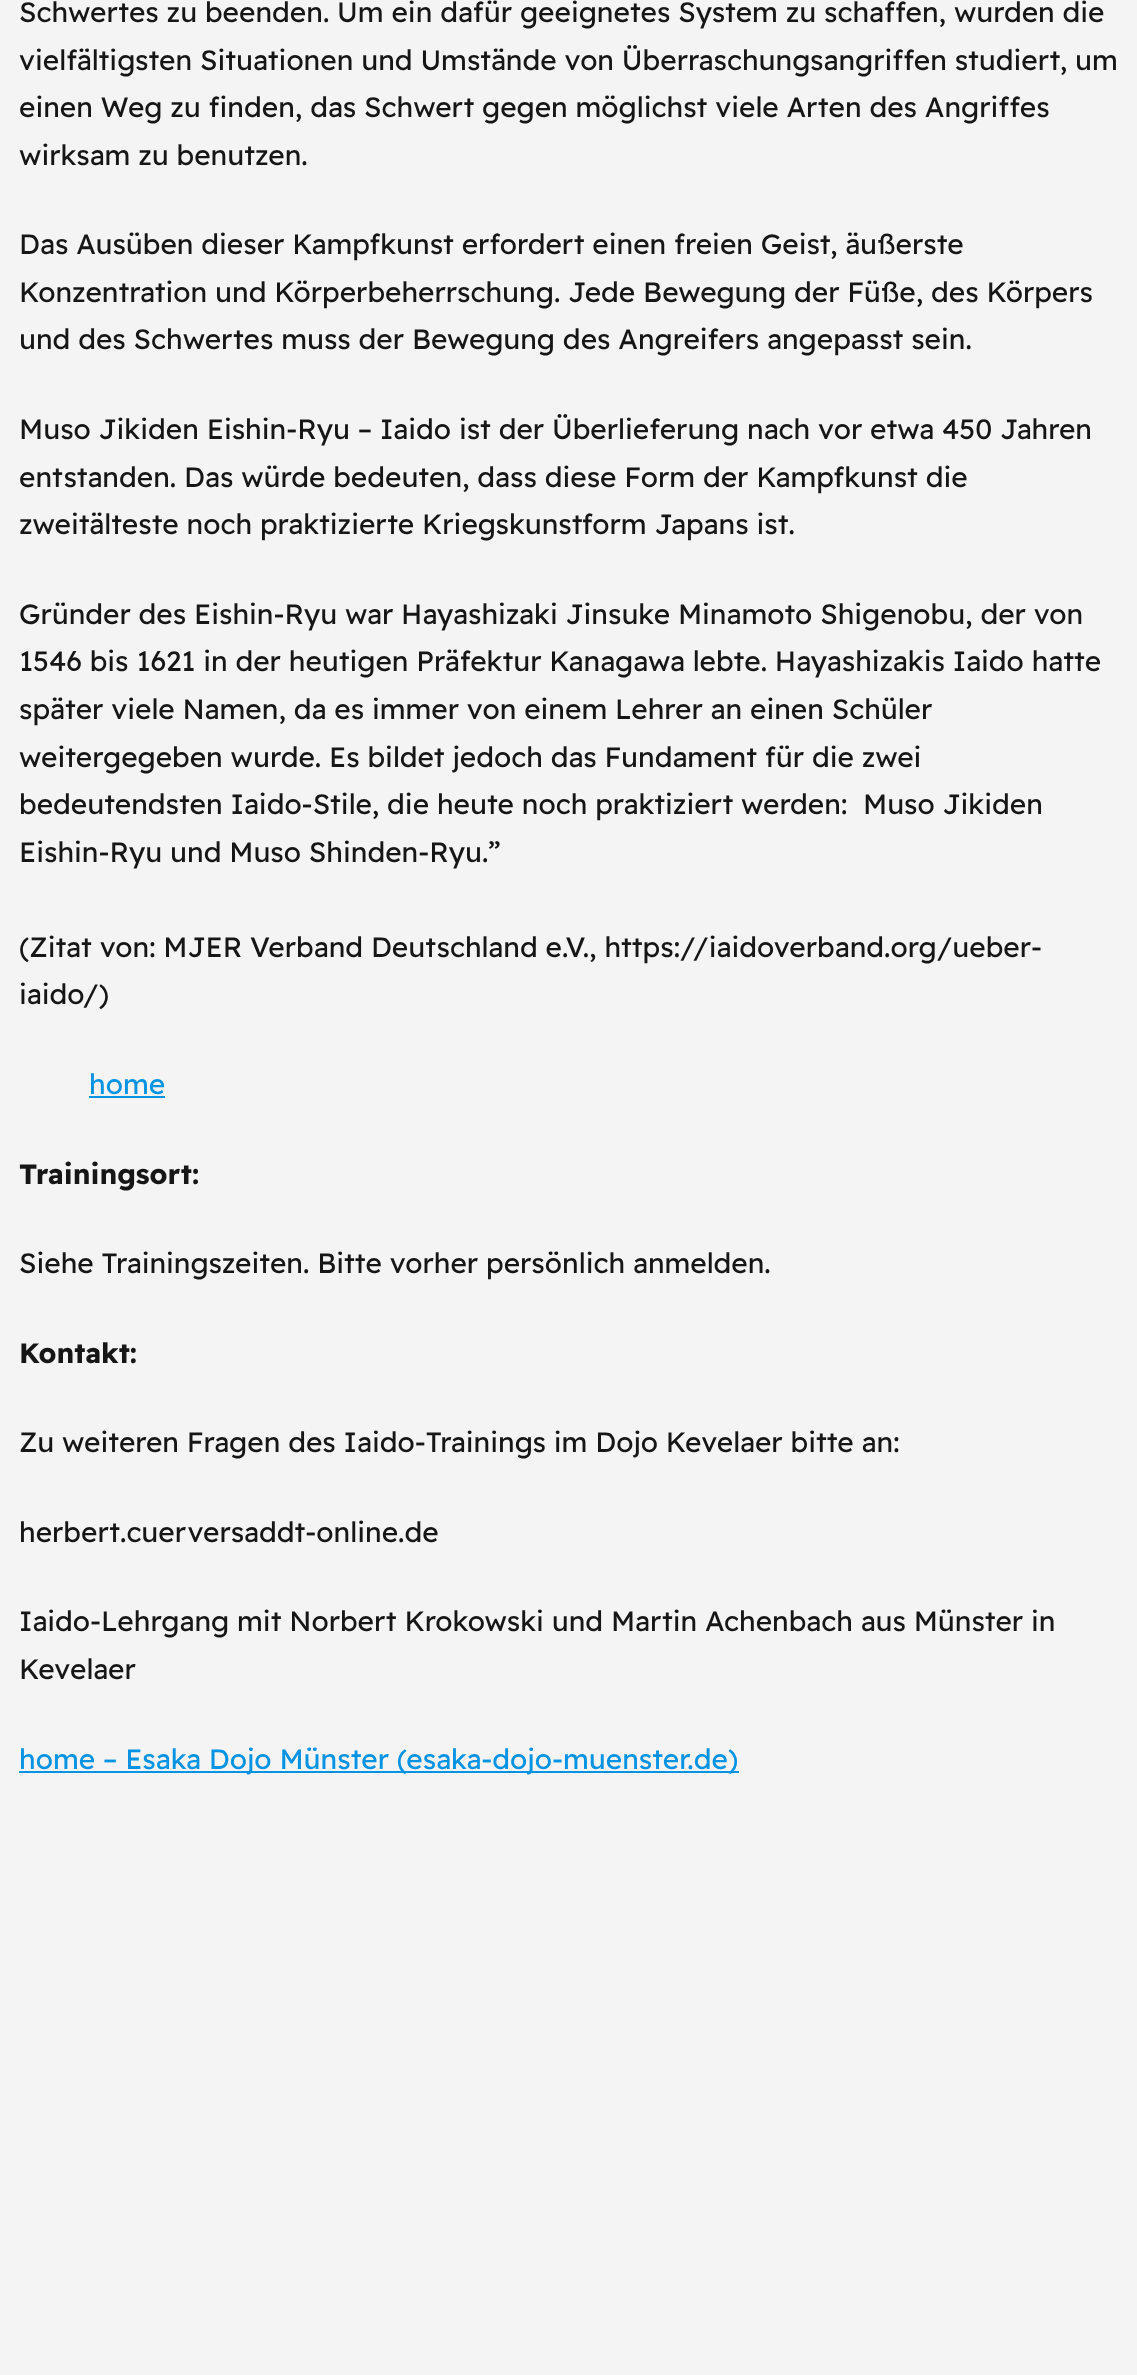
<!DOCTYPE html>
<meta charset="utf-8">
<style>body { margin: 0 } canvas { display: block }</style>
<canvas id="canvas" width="1137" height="2375"></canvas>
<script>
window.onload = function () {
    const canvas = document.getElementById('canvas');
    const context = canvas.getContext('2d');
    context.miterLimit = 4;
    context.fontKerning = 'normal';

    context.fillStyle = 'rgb(244, 244, 244)';
    context.fillRect(0, 0, 1137, 2375);
    context.fillStyle = 'rgb(6, 147, 227)';
    context.fillRect(89, 1096, 76, 2);
    context.fillRect(19, 1771, 720, 2);
    context.font = '28px Readex Pro';
    context.fillStyle = 'rgb(22, 22, 22)';
    context.fillText('Schwertes zu beenden. Um ein dafür geeignetes System zu schaffen, wurden die', 19, 22);
    context.fillText('vielfältigsten Situationen und Umstände von Überraschungsangriffen studiert, um', 19, 70);
    context.fillText('einen Weg zu finden, das Schwert gegen möglichst viele Arten des Angriffes', 19, 117);
    context.fillText('wirksam zu benutzen.', 19, 165);
    context.fillText('Das Ausüben dieser Kampfkunst erfordert einen freien Geist, äußerste', 19, 254);
    context.fillText('Konzentration und Körperbeherrschung. Jede Bewegung der Füße, des Körpers', 19, 302);
    context.fillText('und des Schwertes muss der Bewegung des Angreifers angepasst sein.', 19, 349);
    context.fillText('Muso Jikiden Eishin-Ryu – Iaido ist der Überlieferung nach vor etwa 450 Jahren', 19, 439);
    context.fillText('entstanden. Das würde bedeuten, dass diese Form der Kampfkunst die', 19, 487);
    context.fillText('zweitälteste noch praktizierte Kriegskunstform Japans ist.', 19, 534);
    context.fillText('Gründer des Eishin-Ryu war Hayashizaki Jinsuke Minamoto Shigenobu, der von', 19, 624);
    context.fillText('1546 bis 1621 in der heutigen Präfektur Kanagawa lebte. Hayashizakis Iaido hatte', 19, 671);
    context.fillText('später viele Namen, da es immer von einem Lehrer an einen Schüler', 19, 719);
    context.fillText('weitergegeben wurde. Es bildet jedoch das Fundament für die zwei', 19, 767);
    context.fillText('bedeutendsten Iaido-Stile, die heute noch praktiziert werden:  Muso Jikiden', 19, 814);
    context.fillText('Eishin-Ryu und Muso Shinden-Ryu.”', 19, 862);
    context.fillText('(Zitat von: MJER Verband Deutschland e.V., https://iaidoverband.org/ueber-', 19, 957);
    context.fillText('iaido/)', 19, 1004);
    context.fillStyle = 'rgb(6, 147, 227)';
    context.fillText('home', 89, 1094);
    context.font = 'bold 28px Readex Pro';
    context.fillStyle = 'rgb(22, 22, 22)';
    context.fillText('Trainingsort:', 19, 1184);
    context.font = '28px Readex Pro';
    context.fillText('Siehe Trainingszeiten. Bitte vorher persönlich anmelden.', 19, 1273);
    context.font = 'bold 28px Readex Pro';
    context.fillText('Kontakt:', 19, 1363);
    context.font = '28px Readex Pro';
    context.fillText('Zu weiteren Fragen des Iaido-Trainings im Dojo Kevelaer bitte an:', 19, 1452);
    context.fillText('herbert.cuerversaddt-online.de', 19, 1542);
    context.fillText('Iaido-Lehrgang mit Norbert Krokowski und Martin Achenbach aus Münster in', 19, 1631);
    context.fillText('Kevelaer', 19, 1679);
    context.fillStyle = 'rgb(6, 147, 227)';
    context.fillText('home – Esaka Dojo Münster (esaka-dojo-muenster.de)', 19, 1769);
};
</script>
